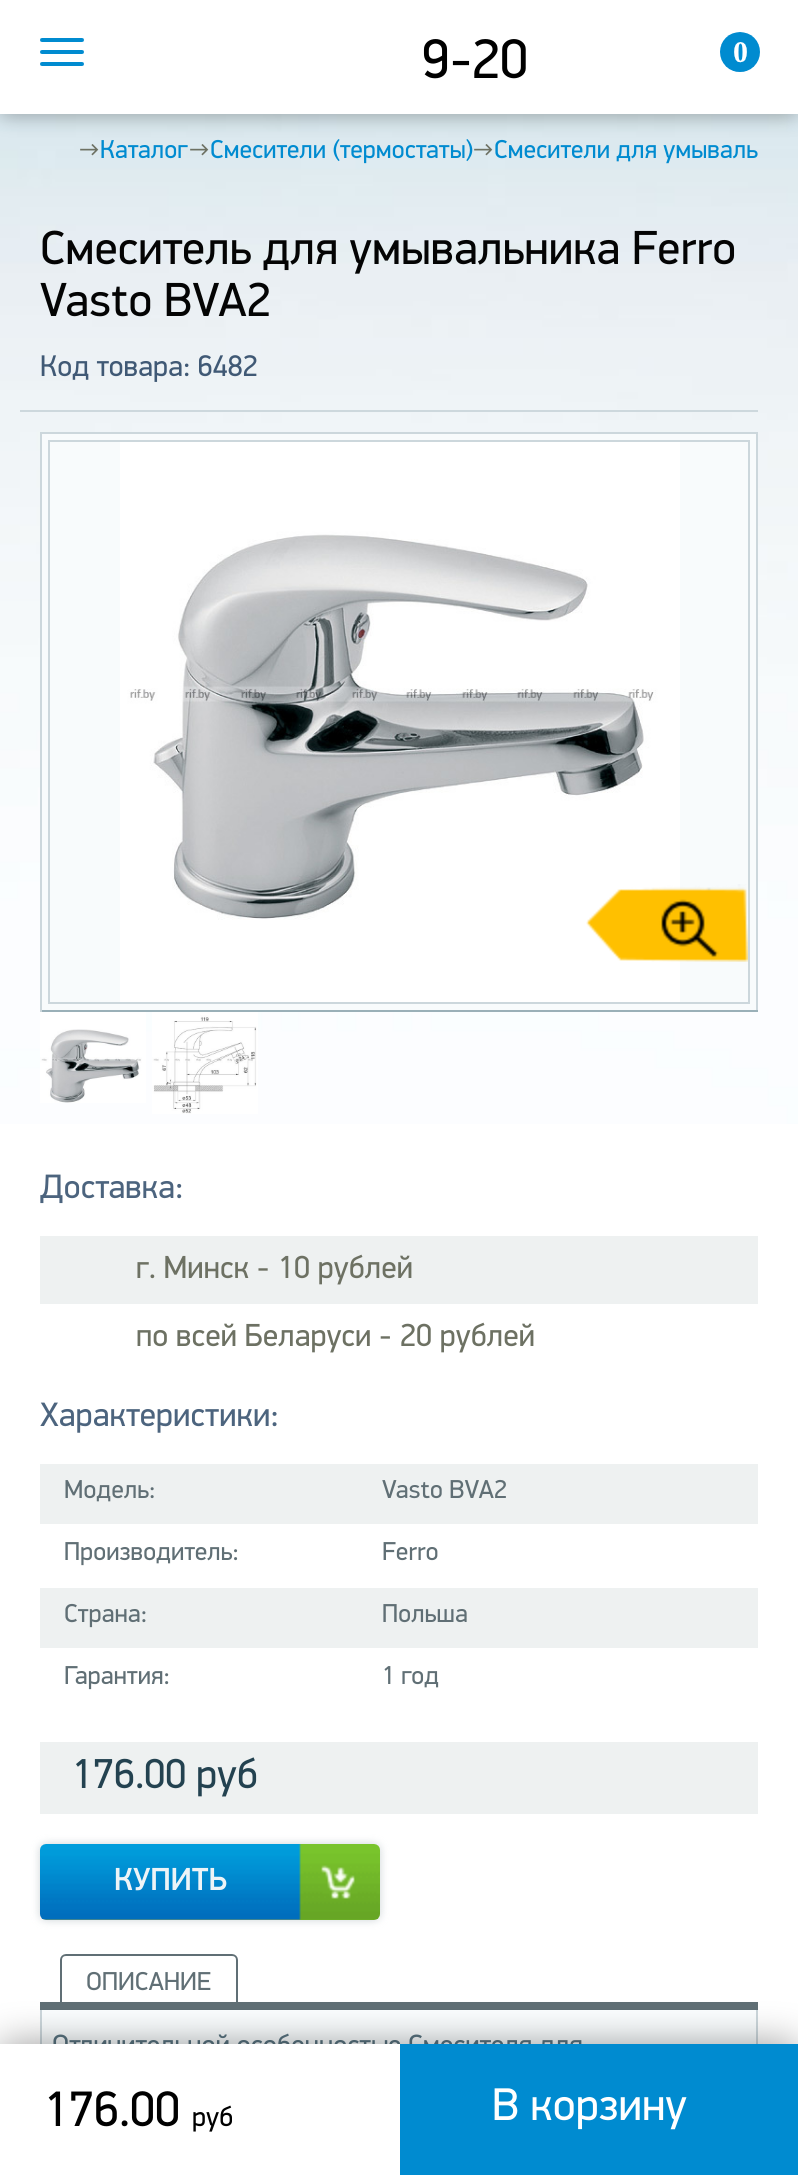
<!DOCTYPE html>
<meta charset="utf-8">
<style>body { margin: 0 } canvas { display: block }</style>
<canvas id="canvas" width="798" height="2175"></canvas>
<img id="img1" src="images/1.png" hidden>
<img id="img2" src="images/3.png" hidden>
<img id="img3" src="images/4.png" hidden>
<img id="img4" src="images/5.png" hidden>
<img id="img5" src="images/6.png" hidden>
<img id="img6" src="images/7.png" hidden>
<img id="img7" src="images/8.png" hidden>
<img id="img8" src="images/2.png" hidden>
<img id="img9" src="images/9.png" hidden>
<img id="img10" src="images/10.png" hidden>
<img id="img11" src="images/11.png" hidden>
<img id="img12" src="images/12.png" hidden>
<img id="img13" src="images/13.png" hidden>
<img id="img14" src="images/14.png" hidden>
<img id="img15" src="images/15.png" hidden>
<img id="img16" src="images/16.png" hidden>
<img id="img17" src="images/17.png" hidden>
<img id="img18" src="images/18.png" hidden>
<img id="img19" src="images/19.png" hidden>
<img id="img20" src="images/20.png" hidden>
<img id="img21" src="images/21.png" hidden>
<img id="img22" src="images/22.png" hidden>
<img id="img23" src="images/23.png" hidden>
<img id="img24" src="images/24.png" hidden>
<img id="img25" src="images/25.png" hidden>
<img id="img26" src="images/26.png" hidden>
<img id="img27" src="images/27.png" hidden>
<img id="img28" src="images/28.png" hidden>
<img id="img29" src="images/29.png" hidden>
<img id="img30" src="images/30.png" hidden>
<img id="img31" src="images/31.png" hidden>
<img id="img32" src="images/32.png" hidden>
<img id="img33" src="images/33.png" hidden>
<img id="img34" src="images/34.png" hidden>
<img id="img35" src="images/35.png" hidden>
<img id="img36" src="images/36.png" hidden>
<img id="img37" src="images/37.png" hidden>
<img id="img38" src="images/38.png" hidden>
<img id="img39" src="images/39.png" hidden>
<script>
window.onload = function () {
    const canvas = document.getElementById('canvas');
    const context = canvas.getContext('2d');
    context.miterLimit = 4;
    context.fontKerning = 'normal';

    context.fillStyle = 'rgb(255, 255, 255)';
    context.fillRect(0, 0, 798, 2175);
    context.drawImage(document.getElementById('img1'), 0, 114, 798, 1010);
    context.drawImage(document.getElementById('img2'), 80, 144, 19, 12);
    context.drawImage(document.getElementById('img3'), 101, 140, 87, 19);
    context.drawImage(document.getElementById('img4'), 190, 144, 19, 12);
    context.drawImage(document.getElementById('img5'), 211, 139, 262, 25);
    context.drawImage(document.getElementById('img6'), 474, 144, 19, 12);
    context.drawImage(document.getElementById('img7'), 495, 139, 263, 25);
    context.fillStyle = 'rgba(0, 0, 0, 0.3)';
    context.filter = 'blur(10px)';
    context.beginPath();
    context.rect(0, 2, 798, 114);
    context.fill();
    context.filter = 'none';
    context.fillStyle = 'rgb(255, 255, 255)';
    context.fillRect(0, 0, 798, 114);
    context.fillStyle = 'rgb(0, 139, 208)';
    context.beginPath();
    context.roundRect(40, 38, 44, 4, 2);
    context.fill();
    context.beginPath();
    context.roundRect(40, 50, 44, 4, 2);
    context.fill();
    context.beginPath();
    context.roundRect(40, 62, 44, 4, 2);
    context.fill();
    context.drawImage(document.getElementById('img8'), 423, 39, 103, 40);
    context.fillStyle = 'rgb(205, 216, 221)';
    context.fillRect(20, 410, 738, 2);
    context.drawImage(document.getElementById('img9'), 42, 230, 693, 44);
    context.drawImage(document.getElementById('img10'), 40, 282, 229, 35);
    context.drawImage(document.getElementById('img11'), 41, 355, 216, 27);
    context.fillStyle = 'rgb(248, 251, 252)';
    context.fillRect(42, 434, 714, 576);
    context.fillStyle = 'rgb(204, 215, 220)';
    context.fillRect(40, 432, 718, 2);
    context.fillRect(756, 432, 2, 580);
    context.fillStyle = 'rgb(154, 176, 184)';
    context.fillRect(40, 1010, 718, 2);
    context.fillStyle = 'rgb(204, 215, 220)';
    context.fillRect(40, 432, 2, 580);
    context.strokeStyle = 'rgb(204, 215, 220)';
    context.lineWidth = 2;
    context.strokeRect(49, 441, 700, 562);
    context.drawImage(document.getElementById('img12'), 120, 442, 560, 560);
    context.drawImage(document.getElementById('img13'), 586, 884, 162, 78);
    context.drawImage(document.getElementById('img14'), 40, 1012, 106, 91);
    context.drawImage(document.getElementById('img15'), 152, 1012, 106, 102);
    context.drawImage(document.getElementById('img16'), 40, 1174, 142, 30);
    context.fillStyle = 'rgb(238, 241, 241)';
    context.fillRect(40, 1236, 718, 68);
    context.drawImage(document.getElementById('img17'), 137, 1255, 131, 24);
    context.drawImage(document.getElementById('img18'), 281, 1254, 131, 31);
    context.drawImage(document.getElementById('img19'), 137, 1323, 253, 30);
    context.drawImage(document.getElementById('img20'), 401, 1322, 133, 31);
    context.drawImage(document.getElementById('img21'), 40, 1402, 237, 31);
    context.fillRect(40, 1464, 718, 60);
    context.drawImage(document.getElementById('img22'), 65, 1480, 89, 22);
    context.drawImage(document.getElementById('img23'), 382, 1479, 124, 20);
    context.drawImage(document.getElementById('img24'), 65, 1542, 173, 24);
    context.drawImage(document.getElementById('img25'), 383, 1542, 55, 19);
    context.fillRect(40, 1588, 718, 60);
    context.drawImage(document.getElementById('img26'), 65, 1603, 81, 25);
    context.drawImage(document.getElementById('img27'), 383, 1604, 84, 19);
    context.drawImage(document.getElementById('img28'), 65, 1666, 104, 24);
    context.drawImage(document.getElementById('img29'), 384, 1666, 55, 22);
    context.fillRect(40, 1742, 718, 72);
    context.drawImage(document.getElementById('img30'), 76, 1758, 109, 31);
    context.drawImage(document.getElementById('img31'), 198, 1757, 59, 40);
    context.fillStyle = 'rgba(155, 170, 175, 0.5)';
    context.filter = 'blur(4px)';
    context.beginPath();
    context.roundRect(40, 1844, 340, 76, 6);
    context.fill();
    context.filter = 'none';
    context.drawImage(document.getElementById('img32'), 40, 1844, 340, 76);
    context.drawImage(document.getElementById('img33'), 115, 1867, 112, 24);
    context.fillStyle = 'rgb(96, 111, 117)';
    context.fillRect(40, 2002, 718, 8);
    context.beginPath();
    context.roundRect(61, 1955, 176, 48, [5, 5, 0, 0]);
    context.strokeStyle = 'rgb(96, 111, 117)';
    context.stroke();
    context.drawImage(document.getElementById('img34'), 87, 1971, 124, 20);
    context.fillStyle = 'rgb(251, 254, 255)';
    context.fillRect(42, 2010, 714, 34);
    context.fillStyle = 'rgb(204, 215, 220)';
    context.fillRect(756, 2010, 2, 34);
    context.fillRect(40, 2010, 2, 34);
    context.drawImage(document.getElementById('img35'), 53, 2033, 348, 11);
    context.drawImage(document.getElementById('img36'), 409, 2034, 173, 10);
    context.fillStyle = 'rgb(0, 139, 208)';
    context.beginPath();
    context.arc(740, 52, 20, 0, 2 * Math.PI);
    context.fill();
    context.fillStyle = 'rgba(0, 0, 0, 0.4)';
    context.filter = 'blur(19px)';
    context.beginPath();
    context.rect(0, 2044, 798, 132);
    context.fill();
    context.filter = 'none';
    context.fillStyle = 'rgb(255, 255, 255)';
    context.fillRect(0, 2044, 400, 131);
    context.drawImage(document.getElementById('img37'), 48, 2091, 130, 36);
    context.drawImage(document.getElementById('img38'), 193, 2105, 39, 27);
    context.fillStyle = 'rgb(0, 139, 208)';
    context.fillRect(400, 2044, 398, 131);
    context.drawImage(document.getElementById('img39'), 494, 2088, 193, 42);
    context.font = 'bold 30px Liberation Serif';
    context.fillStyle = 'rgb(255, 255, 255)';
    context.fillText('0', 733, 62);
};
</script>
